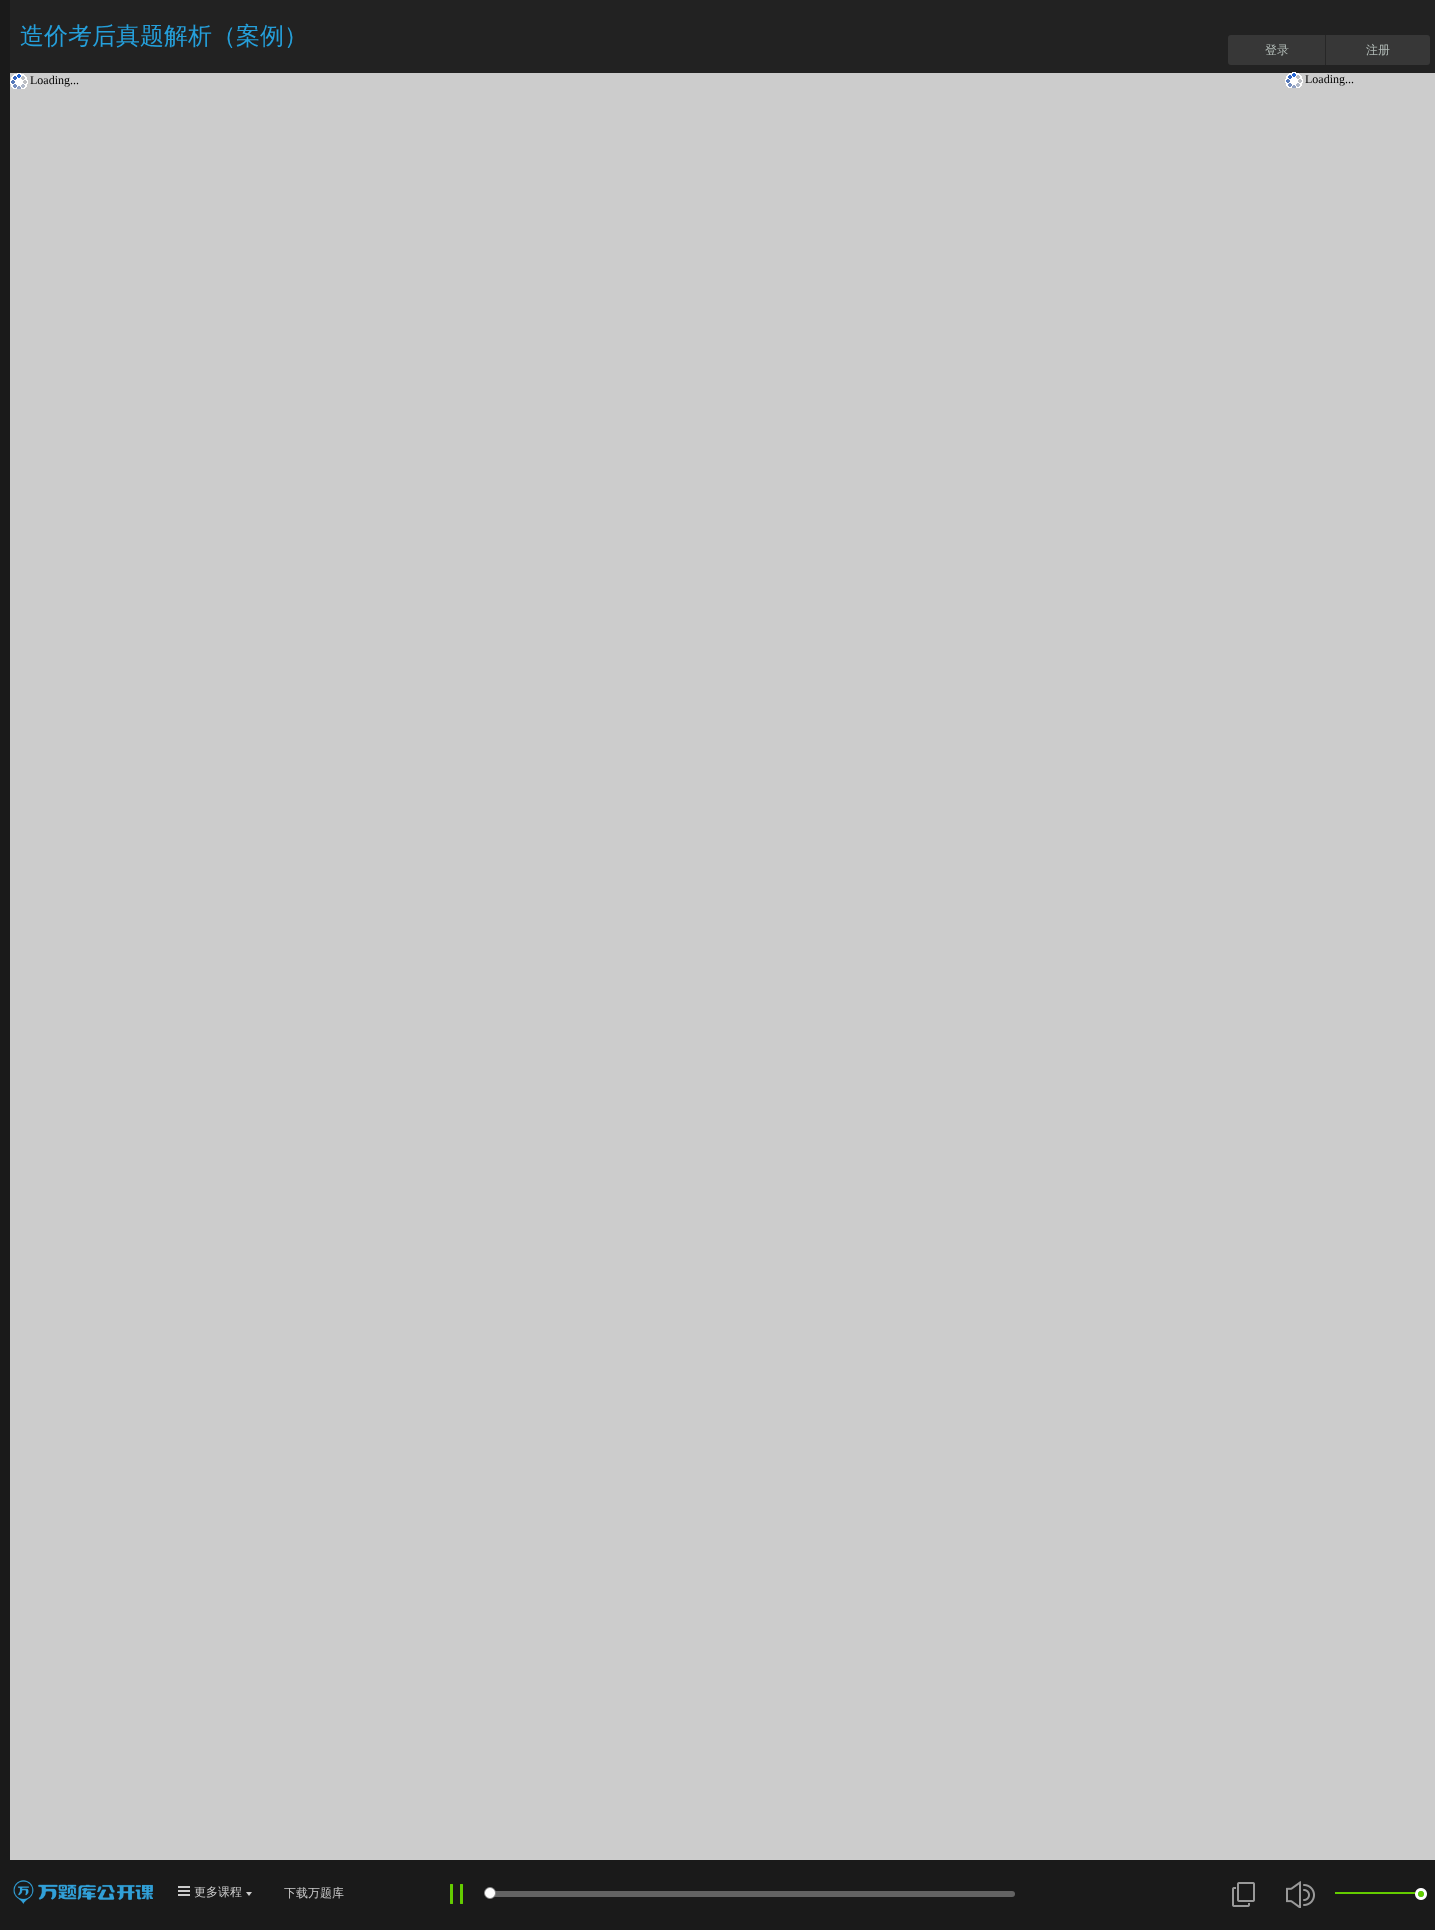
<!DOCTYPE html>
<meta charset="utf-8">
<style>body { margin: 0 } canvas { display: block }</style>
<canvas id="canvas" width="1435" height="1930"></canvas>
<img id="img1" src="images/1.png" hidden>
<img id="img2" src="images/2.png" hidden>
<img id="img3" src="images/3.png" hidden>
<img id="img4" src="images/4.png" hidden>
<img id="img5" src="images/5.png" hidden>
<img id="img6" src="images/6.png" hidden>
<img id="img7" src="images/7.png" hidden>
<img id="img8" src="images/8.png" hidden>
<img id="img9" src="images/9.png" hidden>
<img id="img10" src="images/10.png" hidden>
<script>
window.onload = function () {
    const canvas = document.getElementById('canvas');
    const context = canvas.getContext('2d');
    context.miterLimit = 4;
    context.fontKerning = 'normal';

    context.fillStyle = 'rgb(26, 26, 26)';
    context.fillRect(0, 0, 1435, 1930);
    context.fillStyle = 'rgb(34, 34, 34)';
    context.fillRect(10, 0, 1425, 73);
    context.fillStyle = 'rgb(55, 55, 55)';
    context.beginPath();
    context.roundRect(1228, 35, 202, 30, 3);
    context.fill();
    context.fillStyle = 'rgb(39, 39, 39)';
    context.fillRect(1325, 35, 1, 30);
    context.fillStyle = 'rgb(204, 204, 204)';
    context.fillRect(10, 73, 1425, 1787);
    context.drawImage(document.getElementById('img1'), 10, 73, 18, 16);
    context.drawImage(document.getElementById('img2'), 1285, 72, 18, 16);
    context.drawImage(document.getElementById('img3'), 13, 1880, 140, 24);
    context.drawImage(document.getElementById('img4'), 178, 1886, 12, 10);
    context.drawImage(document.getElementById('img5'), 246, 1892, 6, 4);
    context.drawImage(document.getElementById('img6'), 450, 1884, 13, 20);
    context.fillStyle = 'rgb(99, 99, 99)';
    context.beginPath();
    context.roundRect(491, 1891, 524, 6, 3);
    context.fill();
    context.drawImage(document.getElementById('img7'), 484, 1887, 12, 12);
    context.drawImage(document.getElementById('img8'), 1232, 1882, 23, 25);
    context.drawImage(document.getElementById('img9'), 1286, 1881, 29, 27);
    context.fillStyle = 'rgb(100, 204, 0)';
    context.fillRect(1335, 1892, 80, 2);
    context.drawImage(document.getElementById('img10'), 1415, 1888, 12, 12);
    context.font = '500 24px WenQuanYi Zen Hei';
    context.fillStyle = 'rgb(37, 159, 218)';
    context.fillText('造价考后真题解析（案例）', 20, 44);
    context.font = '500 12px WenQuanYi Zen Hei';
    context.fillStyle = 'rgb(176, 185, 181)';
    context.fillText('登录', 1265, 54);
    context.fillText('注册', 1366, 54);
    context.font = '12px Liberation Serif';
    context.fillStyle = 'rgb(0, 0, 0)';
    context.fillText('Loading...', 30, 84);
    context.fillText('Loading...', 1305, 83);
    context.font = '500 12px WenQuanYi Zen Hei';
    context.fillStyle = 'rgb(204, 204, 204)';
    context.fillText('更多课程', 194, 1896);
    context.fillText('下载万题库', 284, 1897);
};
</script>
